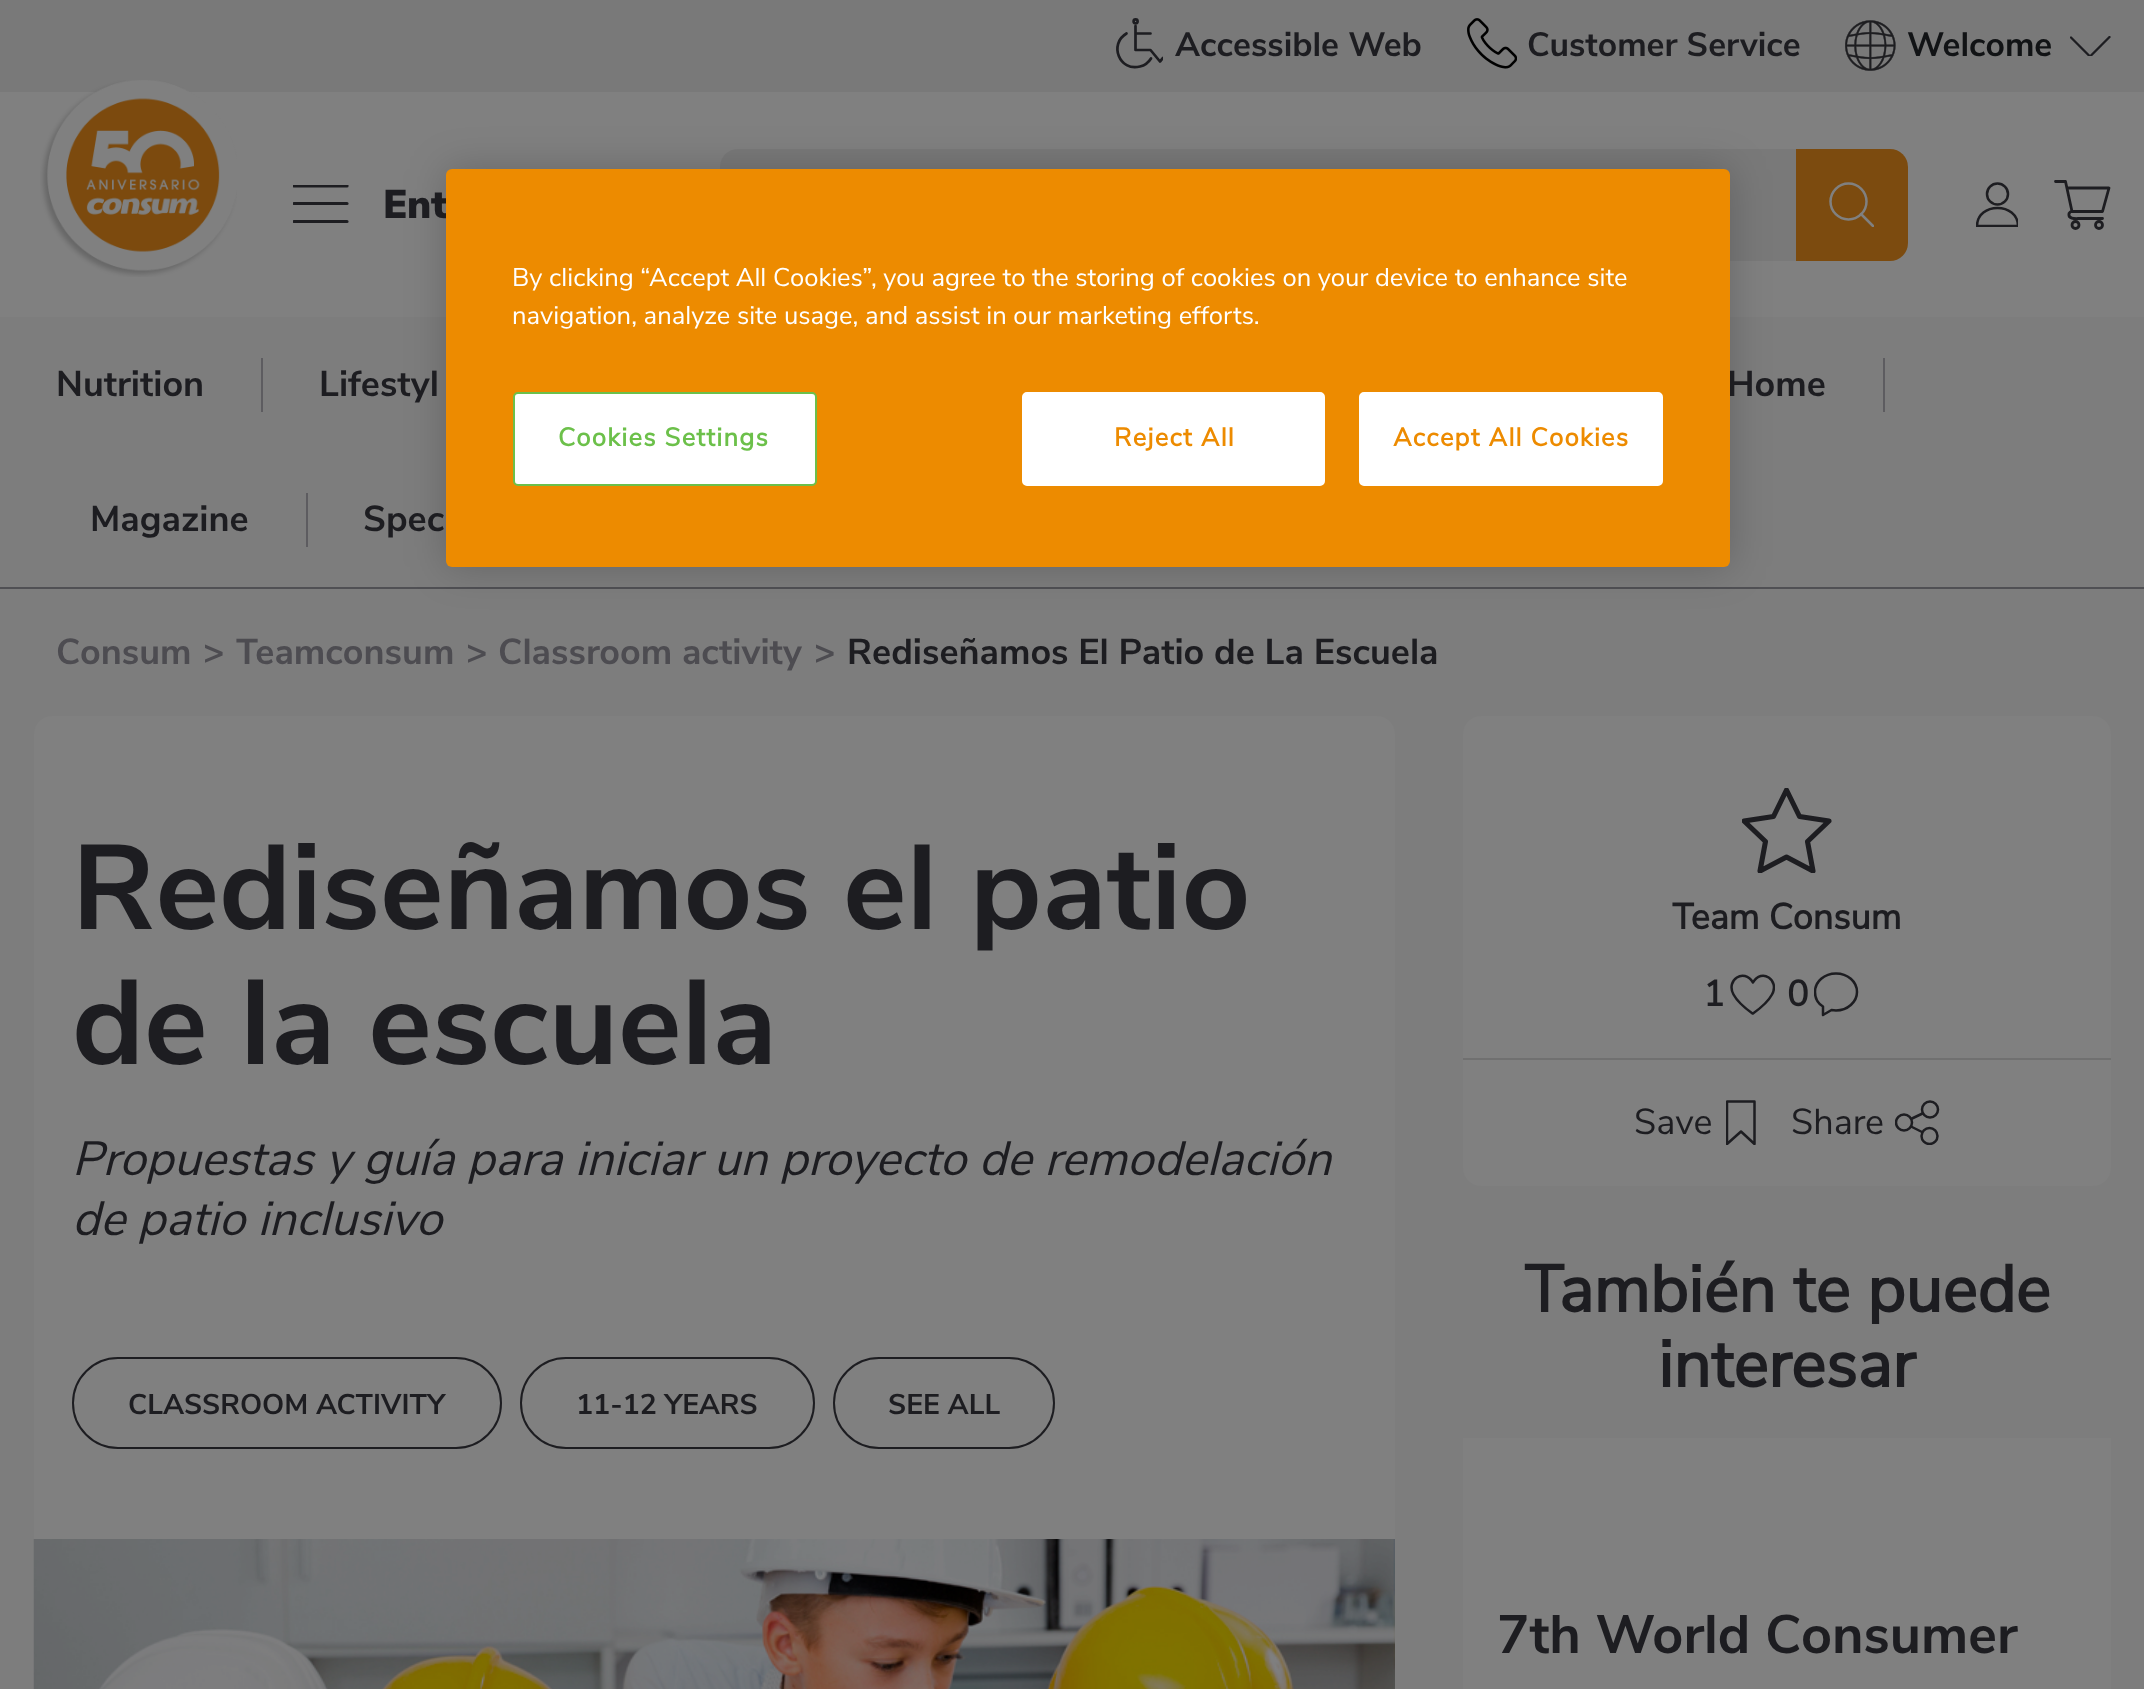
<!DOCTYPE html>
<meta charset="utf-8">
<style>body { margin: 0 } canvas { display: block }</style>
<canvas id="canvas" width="2144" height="1689"></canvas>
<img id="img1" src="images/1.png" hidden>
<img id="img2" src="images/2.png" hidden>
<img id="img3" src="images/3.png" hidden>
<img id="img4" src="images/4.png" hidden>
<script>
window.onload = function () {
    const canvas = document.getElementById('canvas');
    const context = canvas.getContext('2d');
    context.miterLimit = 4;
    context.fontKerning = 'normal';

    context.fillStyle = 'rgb(125, 125, 125)';
    context.fillRect(0, 0, 2144, 1689);
    context.fillStyle = 'rgb(121, 121, 121)';
    context.fillRect(0, 0, 2144, 92);
    context.save();
    context.beginPath();
    context.rect(1116, 18, 47, 52);
    context.clip();
    context.beginPath();
    context.moveTo(1135.5, 26);
    context.lineTo(1135.5, 50);
    context.lineTo(1150.5, 50);
    context.lineTo(1160, 61.5);
    context.lineTo(1163, 58);
    context.strokeStyle = 'rgb(29, 29, 33)';
    context.lineWidth = 2.7;
    context.lineCap = 'round';
    context.lineJoin = 'round';
    context.stroke();
    context.restore();
    context.beginPath();
    context.moveTo(1150.5, 33.5);
    context.lineTo(1136.5, 33.5);
    context.moveTo(1126.5, 33.5);
    context.bezierCurveTo(1108.5, 44, 1119.5, 72, 1140, 66.5);
    context.bezierCurveTo(1144.5, 65.5, 1148.5, 62.5, 1151, 58.5);
    context.strokeStyle = 'rgb(29, 29, 33)';
    context.lineWidth = 2.7;
    context.lineCap = 'round';
    context.lineJoin = 'round';
    context.stroke();
    context.beginPath();
    context.arc(1135.6, 21.3, 2, 0, 2 * Math.PI);
    context.stroke();
    context.drawImage(document.getElementById('img1'), 1467, 18, 50, 51);
    context.drawImage(document.getElementById('img2'), 1845, 20, 51, 51);
    context.save();
    context.beginPath();
    context.rect(2070, 36, 41, 20);
    context.clip();
    context.beginPath();
    context.moveTo(2071, 37.5);
    context.lineTo(2090, 56.5);
    context.lineTo(2109.5, 37);
    context.lineWidth = 2.3;
    context.stroke();
    context.restore();
    context.fillStyle = 'rgb(128, 128, 128)';
    context.fillRect(0, 92, 2144, 225);
    context.drawImage(document.getElementById('img3'), 40, 80, 197, 197);
    context.save();
    context.beginPath();
    context.rect(293, 185, 56, 40);
    context.clip();
    context.beginPath();
    context.moveTo(294, 186);
    context.lineTo(347, 186);
    context.moveTo(294, 203.5);
    context.lineTo(347, 203.5);
    context.moveTo(294, 221.5);
    context.lineTo(347, 221.5);
    context.lineWidth = 3.2;
    context.stroke();
    context.restore();
    context.fillStyle = 'rgb(121, 121, 121)';
    context.beginPath();
    context.roundRect(720, 149, 1076, 112, [18, 0, 0, 18]);
    context.fill();
    context.fillStyle = 'rgb(124, 75, 15)';
    context.beginPath();
    context.roundRect(1796, 149, 112, 112, [0, 18, 18, 0]);
    context.fill();
    context.beginPath();
    context.arc(1848.5, 201.5, 18, 0, 2 * Math.PI);
    context.strokeStyle = 'rgb(128, 128, 128)';
    context.lineWidth = 2.5;
    context.stroke();
    context.save();
    context.beginPath();
    context.rect(1829, 182, 45, 45);
    context.clip();
    context.beginPath();
    context.moveTo(1873, 226);
    context.lineTo(1861, 214);
    context.stroke();
    context.restore();
    context.beginPath();
    context.arc(1997.5, 194, 10.5, 0, 2 * Math.PI);
    context.strokeStyle = 'rgb(29, 29, 33)';
    context.stroke();
    context.save();
    context.beginPath();
    context.rect(1976, 182, 42, 45);
    context.clip();
    context.beginPath();
    context.moveTo(2018, 226);
    context.bezierCurveTo(2018, 202, 1977, 202, 1977, 226);
    context.closePath();
    context.stroke();
    context.restore();
    context.beginPath();
    context.moveTo(2055.5, 181.5);
    context.lineTo(2065.5, 181.5);
    context.lineTo(2072, 211.5);
    context.lineTo(2102.5, 211.5);
    context.lineTo(2109, 188);
    context.lineTo(2068.5, 188);
    context.moveTo(2102.5, 218.5);
    context.lineTo(2079, 218.5);
    context.bezierCurveTo(2076.5, 218.5, 2067.5, 219.5, 2069, 213.5);
    context.bezierCurveTo(2069.5, 212.5, 2070.5, 211.5, 2072, 211);
    context.lineWidth = 2.8;
    context.stroke();
    context.beginPath();
    context.arc(2075.5, 225, 3.5, 0, 2 * Math.PI);
    context.stroke();
    context.beginPath();
    context.arc(2099, 225, 3.5, 0, 2 * Math.PI);
    context.stroke();
    context.fillStyle = 'rgb(80, 80, 84)';
    context.fillRect(0, 587, 2144, 2);
    context.fillStyle = 'rgb(93, 92, 96)';
    context.fillRect(261, 358, 2, 54);
    context.fillRect(1883, 358, 2, 54);
    context.fillRect(306, 493, 2, 54);
    context.fillStyle = 'rgb(128, 128, 128)';
    context.beginPath();
    context.roundRect(34, 716, 1361, 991, 18);
    context.fill();
    context.beginPath();
    context.roundRect(73, 1358, 428, 90, 45);
    context.lineWidth = 2;
    context.lineJoin = 'miter';
    context.stroke();
    context.beginPath();
    context.roundRect(521, 1358, 293, 90, 45);
    context.stroke();
    context.beginPath();
    context.roundRect(834, 1358, 220, 90, 45);
    context.stroke();
    context.drawImage(document.getElementById('img4'), 33, 1539, 1362, 150);
    context.beginPath();
    context.roundRect(1463, 716, 648, 470, 18);
    context.fill();
    context.save();
    context.beginPath();
    context.rect(1742, 788, 90, 85);
    context.clip();
    context.beginPath();
    context.moveTo(1786.5, 790);
    context.lineTo(1799.5, 816.5);
    context.lineTo(1829, 821);
    context.lineTo(1807.5, 841.5);
    context.lineTo(1813, 871);
    context.lineTo(1786.5, 857);
    context.lineTo(1760, 871);
    context.lineTo(1765.5, 841.5);
    context.lineTo(1744, 821);
    context.lineTo(1773.5, 816.5);
    context.closePath();
    context.lineWidth = 5.1;
    context.lineJoin = 'round';
    context.stroke();
    context.restore();
    context.fillStyle = 'rgb(112, 112, 112)';
    context.fillRect(1463, 1058, 648, 2);
    context.save();
    context.beginPath();
    context.rect(1730, 974, 45, 41);
    context.clip();
    context.beginPath();
    context.moveTo(1752.5, 1013.5);
    context.bezierCurveTo(1745.5, 1008.5, 1737.5, 1002, 1733.5, 994.5);
    context.bezierCurveTo(1725.5, 980, 1744, 967.5, 1753, 982.5);
    context.bezierCurveTo(1761.5, 967.5, 1780, 980, 1772, 994.5);
    context.bezierCurveTo(1768, 1002, 1760, 1008.5, 1753, 1013.5);
    context.closePath();
    context.lineWidth = 2.5;
    context.lineJoin = 'round';
    context.stroke();
    context.restore();
    context.save();
    context.beginPath();
    context.rect(1814, 972, 45, 45);
    context.clip();
    context.beginPath();
    context.moveTo(1823, 1006.5);
    context.bezierCurveTo(1818, 1003.5, 1815, 998, 1815, 992);
    context.bezierCurveTo(1815, 981.5, 1824.5, 973.5, 1836, 973.5);
    context.bezierCurveTo(1847.5, 973.5, 1857, 981.5, 1857, 992);
    context.bezierCurveTo(1857, 1002, 1847.5, 1010.5, 1836, 1010.5);
    context.lineTo(1831.5, 1010);
    context.lineTo(1823, 1015);
    context.closePath();
    context.lineWidth = 2.5;
    context.lineJoin = 'round';
    context.stroke();
    context.restore();
    context.save();
    context.beginPath();
    context.rect(1726, 1100, 31, 45);
    context.clip();
    context.beginPath();
    context.moveTo(1754.5, 1144);
    context.lineTo(1741, 1131.5);
    context.lineTo(1727, 1144);
    context.lineTo(1727, 1101.5);
    context.lineTo(1754.5, 1101.5);
    context.closePath();
    context.lineWidth = 2.5;
    context.lineJoin = 'round';
    context.stroke();
    context.restore();
    context.save();
    context.beginPath();
    context.rect(1895, 1100, 45, 45);
    context.clip();
    context.beginPath();
    context.arc(1904, 1122.5, 8, 0, 2 * Math.PI);
    context.lineWidth = 2.5;
    context.stroke();
    context.restore();
    context.beginPath();
    context.arc(1930, 1109.5, 8, 0, 2 * Math.PI);
    context.lineWidth = 2.5;
    context.stroke();
    context.beginPath();
    context.moveTo(1922.5, 1113.5);
    context.lineTo(1912, 1118.5);
    context.lineJoin = 'round';
    context.stroke();
    context.save();
    context.beginPath();
    context.rect(1895, 1100, 45, 45);
    context.clip();
    context.beginPath();
    context.arc(1929.5, 1136, 8, 0, 2 * Math.PI);
    context.stroke();
    context.restore();
    context.beginPath();
    context.moveTo(1922, 1132);
    context.lineTo(1912, 1127);
    context.stroke();
    context.fillStyle = 'rgb(128, 128, 128)';
    context.fillRect(1463, 1438, 648, 251);
    context.fillStyle = 'rgba(0, 0, 0, 0.2)';
    context.filter = 'blur(20px)';
    context.beginPath();
    context.roundRect(446, 169, 1284, 398, 6);
    context.fill();
    context.filter = 'none';
    context.font = 'bold 33.75px Nunito Sans';
    context.fillStyle = 'rgb(29, 29, 33)';
    context.fillText('Accessible Web', 1175, 56);
    context.fillText('Customer Service', 1527, 56);
    context.fillStyle = 'rgb(17, 19, 21)';
    context.fillText('Welcome', 1907, 56);
    context.font = '900 40px Nunito Sans';
    context.fillStyle = 'rgb(29, 29, 33)';
    context.fillText('Ent', 383, 218);
    context.font = 'bold 36px Nunito Sans';
    context.fillText('Nutrition', 56, 396);
    context.fillText('Lifestyl', 319, 396);
    context.fillText('Home', 1727, 396);
    context.fillText('Magazine', 90, 531);
    context.fillText('Spec', 363, 531);
    context.fillStyle = 'rgb(77, 76, 81)';
    context.fillText('Consum', 56, 664);
    context.fillText('>', 203, 664);
    context.fillText('Teamconsum', 236, 664);
    context.fillText('>', 466, 664);
    context.fillText('Classroom activity', 498, 664);
    context.fillText('>', 814, 664);
    context.fillStyle = 'rgb(29, 29, 33)';
    context.fillText('Rediseñamos El Patio de La Escuela', 847, 664);
    context.font = 'bold 120px Nunito Sans';
    context.fillText('Rediseñamos el patio', 72, 929);
    context.fillText('de la escuela', 72, 1064);
    context.font = 'italic 48px Nunito Sans';
    context.fillText('Propuestas y guía para iniciar un proyecto de remodelación', 72, 1175);
    context.fillText('de patio inclusivo', 72, 1235);
    context.font = 'bold 28.5px Nunito Sans';
    context.fillText('CLASSROOM ACTIVITY', 128, 1414);
    context.fillText('11-12 YEARS', 576, 1414);
    context.fillText('SEE ALL', 888, 1414);
    context.font = 'bold 36px "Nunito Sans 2"';
    context.fillText('Team Consum', 1672, 929);
    context.fillText('1', 1703, 1006);
    context.fillText('0', 1787, 1006);
    context.font = '36px Nunito Sans';
    context.fillText('Save', 1634, 1134);
    context.fillText('Share', 1791, 1134);
    context.font = 'bold 66px "Nunito Sans 2"';
    context.fillText('También te puede', 1524, 1312);
    context.fillText('interesar', 1658, 1387);
    context.font = 'bold 54px Nunito Sans';
    context.fillText('7th World Consumer', 1497, 1653);
    context.fillStyle = 'rgb(237, 139, 0)';
    context.beginPath();
    context.roundRect(446, 169, 1284, 398, 6);
    context.fill();
    context.font = '25.6px Nunito Sans';
    context.fillStyle = 'rgb(255, 255, 255)';
    context.fillText('By clicking “Accept All Cookies”, you agree to the storing of cookies on your device to enhance site', 512, 286);
    context.fillText('navigation, analyze site usage, and assist in our marketing efforts.', 512, 324);
    context.beginPath();
    context.roundRect(514, 393, 302, 92, 4);
    context.fill();
    context.strokeStyle = 'rgb(108, 192, 74)';
    context.lineWidth = 2;
    context.lineJoin = 'miter';
    context.stroke();
    context.letterSpacing = '1.25px';
    context.font = 'bold 25.6px "Nunito Sans 2"';
    context.fillStyle = 'rgb(108, 192, 74)';
    context.fillText('Cookies Settings', 558, 446);
    context.fillStyle = 'rgb(255, 255, 255)';
    context.beginPath();
    context.roundRect(1023, 393, 301, 92, 4);
    context.fill();
    context.strokeStyle = 'rgb(255, 255, 255)';
    context.stroke();
    context.fillStyle = 'rgb(237, 139, 0)';
    context.fillText('Reject All', 1114, 446);
    context.fillStyle = 'rgb(255, 255, 255)';
    context.beginPath();
    context.roundRect(1360, 393, 302, 92, 4);
    context.fill();
    context.stroke();
    context.fillStyle = 'rgb(237, 139, 0)';
    context.fillText('Accept All Cookies', 1393, 446);
};
</script>
